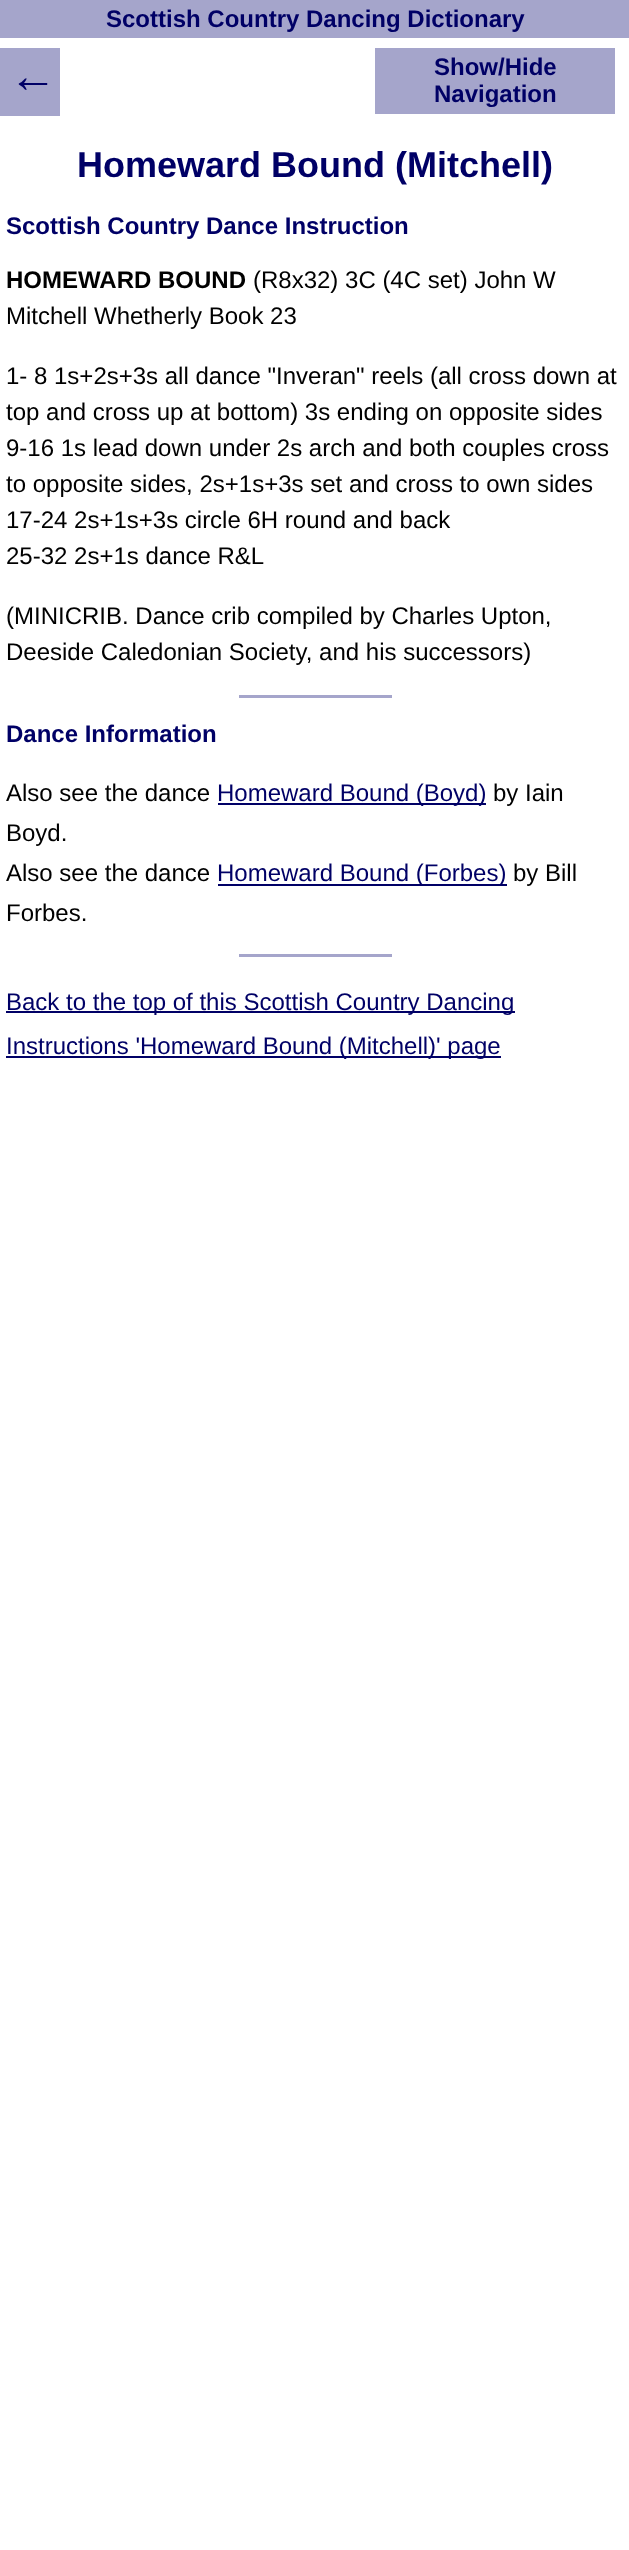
<!DOCTYPE html>
<meta charset="utf-8">
<style>body { margin: 0 } canvas { display: block }</style>
<canvas id="canvas" width="629" height="2550"></canvas>
<script>
window.onload = function () {
    const canvas = document.getElementById('canvas');
    const context = canvas.getContext('2d');
    context.miterLimit = 4;
    context.fontKerning = 'normal';

    context.fillStyle = 'rgb(255, 255, 255)';
    context.fillRect(0, 0, 629, 2550);
    context.fillStyle = 'rgb(165, 165, 203)';
    context.fillRect(0, 0, 629, 38);
    context.fillRect(375, 48, 240, 66);
    context.fillRect(239, 695, 153, 3);
    context.fillStyle = 'rgb(0, 0, 102)';
    context.fillRect(218, 803, 268, 2);
    context.fillRect(218, 884, 289, 2);
    context.fillStyle = 'rgb(165, 165, 203)';
    context.fillRect(239, 954, 153, 3);
    context.fillStyle = 'rgb(0, 0, 102)';
    context.fillRect(6, 1011, 509, 2);
    context.fillRect(6, 1056, 495, 2);
    context.fillStyle = 'rgb(165, 165, 203)';
    context.fillRect(0, 48, 60, 68);
    context.font = 'bold 24px Liberation Sans';
    context.fillStyle = 'rgb(0, 0, 102)';
    context.fillText('Scottish Country Dancing Dictionary', 106, 27);
    context.fillText('Show/Hide', 434, 75);
    context.fillText('Navigation', 434, 102);
    context.font = 'bold 36px Liberation Sans';
    context.fillText('Homeward Bound (Mitchell)', 77, 177);
    context.font = 'bold 24px Liberation Sans';
    context.fillText('Scottish Country Dance Instruction', 6, 234);
    context.fillStyle = 'rgb(0, 0, 0)';
    context.fillText('HOMEWARD BOUND', 6, 288);
    context.font = '24px Liberation Sans';
    context.fillText('(R8x32) 3C (4C set) John W', 253, 288);
    context.fillText('Mitchell Whetherly Book 23', 6, 324);
    context.fillText('1- 8 1s+2s+3s all dance "Inveran" reels (all cross down at', 6, 384);
    context.fillText('top and cross up at bottom) 3s ending on opposite sides', 6, 420);
    context.fillText('9-16 1s lead down under 2s arch and both couples cross', 6, 456);
    context.fillText('to opposite sides, 2s+1s+3s set and cross to own sides', 6, 492);
    context.fillText('17-24 2s+1s+3s circle 6H round and back', 6, 528);
    context.fillText('25-32 2s+1s dance R&L', 6, 564);
    context.fillText('(MINICRIB. Dance crib compiled by Charles Upton,', 6, 624);
    context.fillText('Deeside Caledonian Society, and his successors)', 6, 660);
    context.font = 'bold 24px Liberation Sans';
    context.fillStyle = 'rgb(0, 0, 102)';
    context.fillText('Dance Information', 6, 742);
    context.font = '24px Liberation Sans';
    context.fillStyle = 'rgb(0, 0, 0)';
    context.fillText('Also see the dance', 6, 801);
    context.fillStyle = 'rgb(0, 0, 102)';
    context.fillText('Homeward Bound (Boyd)', 217, 801);
    context.fillStyle = 'rgb(0, 0, 0)';
    context.fillText('by Iain', 493, 801);
    context.fillText('Boyd.', 6, 841);
    context.fillText('Also see the dance', 6, 881);
    context.fillStyle = 'rgb(0, 0, 102)';
    context.fillText('Homeward Bound (Forbes)', 217, 881);
    context.fillStyle = 'rgb(0, 0, 0)';
    context.fillText('by Bill', 513, 881);
    context.fillText('Forbes.', 6, 921);
    context.fillStyle = 'rgb(0, 0, 102)';
    context.fillText('Back to the top of this Scottish Country Dancing', 6, 1010);
    context.fillText('Instructions \'Homeward Bound (Mitchell)\' page', 6, 1054);
    context.font = '48px Liberation Sans';
    context.fillText('←', 9, 92);
};
</script>
